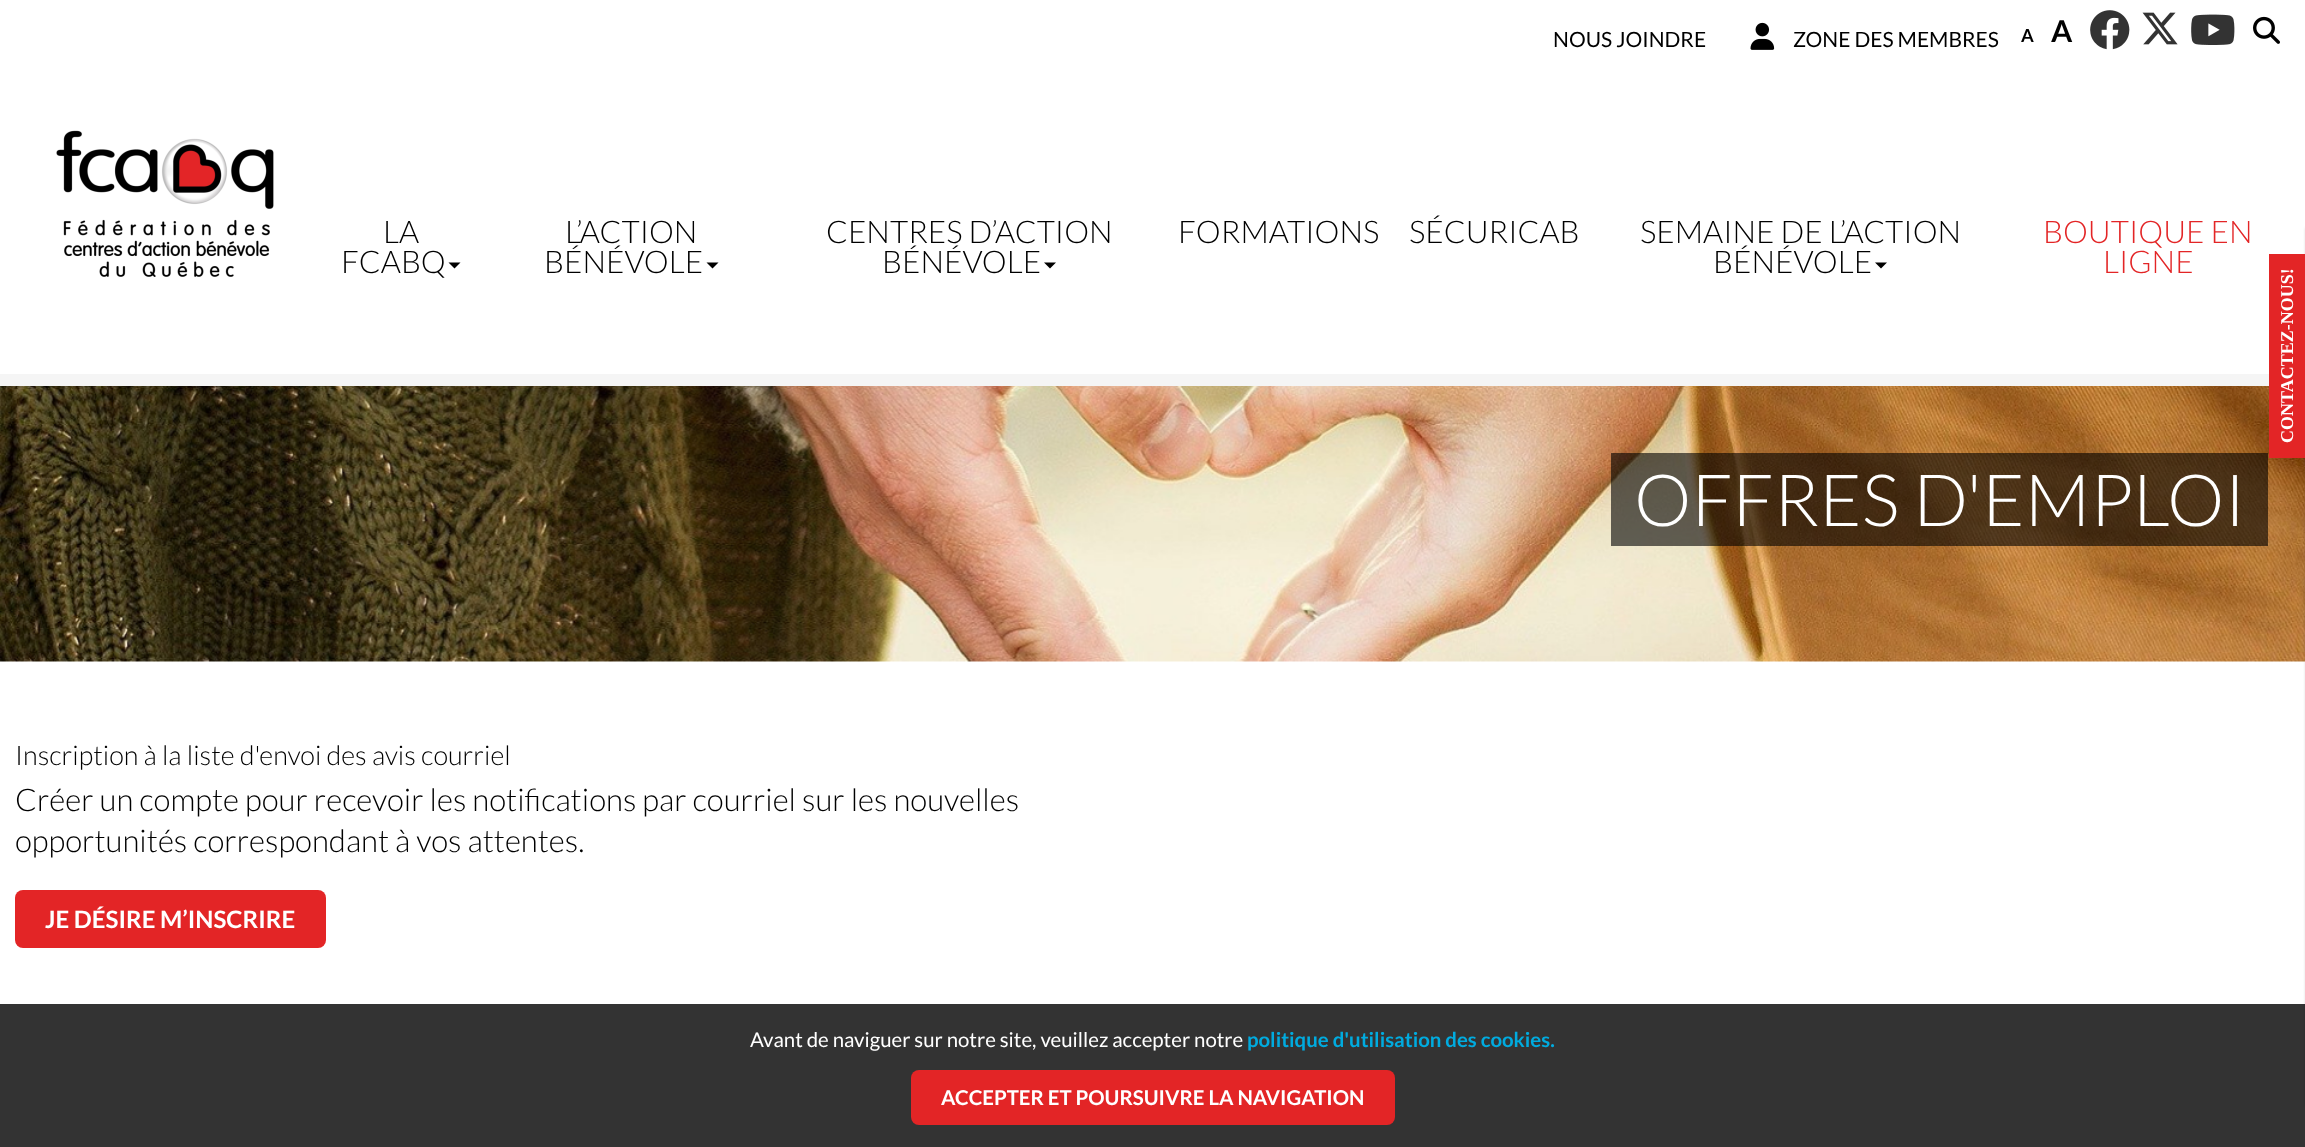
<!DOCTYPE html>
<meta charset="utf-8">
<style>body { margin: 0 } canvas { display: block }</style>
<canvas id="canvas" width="2305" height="1147"></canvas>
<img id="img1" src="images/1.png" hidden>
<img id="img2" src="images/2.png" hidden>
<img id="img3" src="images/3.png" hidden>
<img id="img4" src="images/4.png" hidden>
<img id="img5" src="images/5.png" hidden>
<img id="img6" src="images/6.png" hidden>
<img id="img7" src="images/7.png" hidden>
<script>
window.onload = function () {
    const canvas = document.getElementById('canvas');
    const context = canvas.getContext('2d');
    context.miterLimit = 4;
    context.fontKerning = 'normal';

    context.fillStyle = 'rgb(255, 255, 255)';
    context.fillRect(0, 0, 2305, 1147);
    context.drawImage(document.getElementById('img1'), 1750, 22, 25, 28);
    context.drawImage(document.getElementById('img2'), 2090, 10, 40, 40);
    context.drawImage(document.getElementById('img3'), 2142, 12, 36, 33);
    context.drawImage(document.getElementById('img4'), 2191, 14, 44, 31);
    context.drawImage(document.getElementById('img5'), 2253, 16, 27, 28);
    context.fillStyle = 'rgb(245, 245, 245)';
    context.fillRect(0, 374, 2269, 12);
    context.drawImage(document.getElementById('img6'), 56, 130, 218, 147);
    context.fillStyle = 'rgb(0, 0, 0)';
    context.beginPath();
    context.moveTo(448.5, 262.5);
    context.lineTo(460.5, 262.5);
    context.lineTo(454.5, 268.5);
    context.closePath();
    context.fill();
    context.beginPath();
    context.moveTo(706.5, 262.5);
    context.lineTo(718.5, 262.5);
    context.lineTo(712.5, 268.5);
    context.closePath();
    context.fill();
    context.beginPath();
    context.moveTo(1044, 262.5);
    context.lineTo(1056, 262.5);
    context.lineTo(1050, 268.5);
    context.closePath();
    context.fill();
    context.beginPath();
    context.moveTo(1875, 262.5);
    context.lineTo(1887, 262.5);
    context.lineTo(1881, 268.5);
    context.closePath();
    context.fill();
    context.drawImage(document.getElementById('img7'), 0, 386, 2305, 276);
    context.fillStyle = 'rgba(0, 0, 0, 0.6)';
    context.fillRect(1611, 453, 657, 93);
    context.fillStyle = 'rgb(227, 37, 38)';
    context.beginPath();
    context.roundRect(15, 890, 311, 58, 8);
    context.fill();
    context.fillStyle = 'rgb(51, 51, 51)';
    context.fillRect(0, 1004, 2305, 143);
    context.fillStyle = 'rgba(0, 0, 0, 0.3)';
    context.filter = 'blur(1.5px)';
    context.beginPath();
    context.rect(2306, 228, 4, 878);
    context.fill();
    context.filter = 'none';
    context.fillStyle = 'rgb(227, 37, 38)';
    context.fillRect(2269, 254, 36, 204);
    context.beginPath();
    context.roundRect(911, 1070, 484, 55, 8);
    context.fill();
    context.font = '21px Lato';
    context.fillStyle = 'rgb(0, 0, 0)';
    context.fillText('NOUS JOINDRE', 1553, 47);
    context.fillText('ZONE DES MEMBRES', 1793, 47);
    context.font = 'bold 18px Lato';
    context.fillText('A', 2021, 42);
    context.font = 'bold 30px Lato';
    context.fillText('A', 2051, 42);
    context.font = '300 31.2px Lato';
    context.fillText('LA', 383, 243);
    context.fillText('FCABQ', 341, 273);
    context.fillText('L’ACTION', 565, 243);
    context.fillText('BÉNÉVOLE', 544, 273);
    context.fillText('CENTRES D’ACTION', 826, 243);
    context.fillText('BÉNÉVOLE', 882, 273);
    context.fillText('FORMATIONS', 1178, 243);
    context.fillText('SÉCURICAB', 1409, 243);
    context.fillText('SEMAINE DE L’ACTION', 1640, 243);
    context.fillText('BÉNÉVOLE', 1713, 273);
    context.fillStyle = 'rgb(227, 37, 38)';
    context.fillText('BOUTIQUE EN', 2043, 243);
    context.fillText('LIGNE', 2103, 273);
    context.font = '300 72px Lato';
    context.fillStyle = 'rgb(255, 255, 255)';
    context.fillText('OFFRES D\'EMPLOI', 1634, 526);
    context.font = '300 27px Lato';
    context.fillStyle = 'rgb(0, 0, 0)';
    context.fillText('Inscription à la liste d\'envoi des avis courriel', 15, 765);
    context.font = '300 31.2px Lato';
    context.fillText('Créer un compte pour recevoir les notifications par courriel sur les nouvelles', 15, 811);
    context.fillText('opportunités correspondant à vos attentes.', 15, 852);
    context.font = 'bold 24px Lato';
    context.fillStyle = 'rgb(255, 255, 255)';
    context.fillText('JE DÉSIRE M’INSCRIRE', 45, 928);
    context.font = 'bold 18px Liberation Serif';
    context.save();
    context.translate(2293, 443);
    context.rotate(-90 * Math.PI / 180);
    context.fillText('CONTACTEZ-NOUS!', 0, 0);
    context.restore();
    context.font = '20.4px Lato';
    context.fillText('Avant de naviguer sur notre site, veuillez accepter notre', 750, 1047);
    context.font = 'bold 20.4px Lato';
    context.fillStyle = 'rgb(0, 171, 223)';
    context.fillText('politique d\'utilisation des cookies.', 1247, 1047);
    context.fillStyle = 'rgb(255, 255, 255)';
    context.fillText('ACCEPTER ET POURSUIVRE LA NAVIGATION', 941, 1105);
};
</script>
